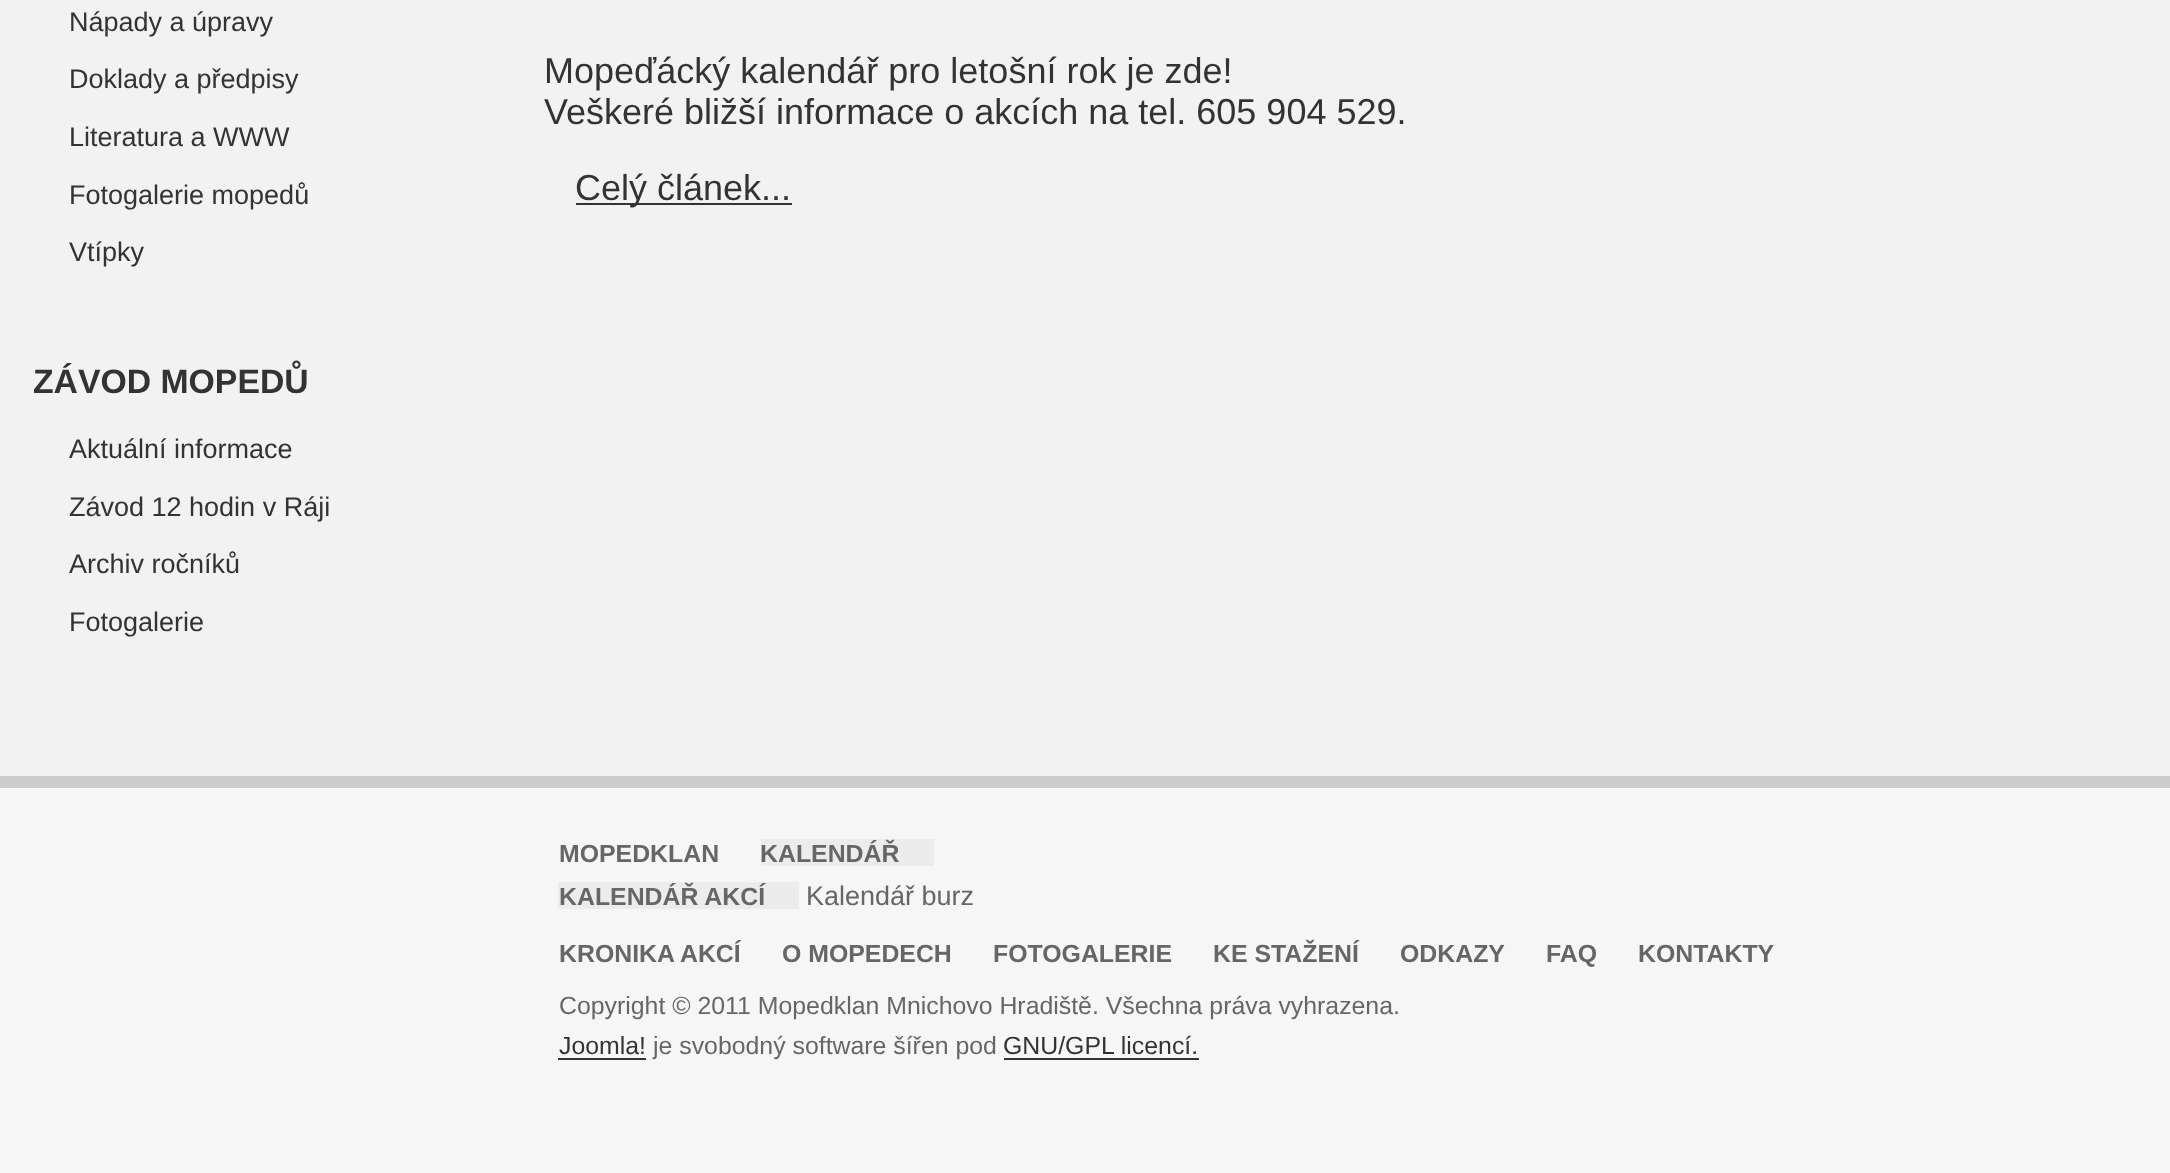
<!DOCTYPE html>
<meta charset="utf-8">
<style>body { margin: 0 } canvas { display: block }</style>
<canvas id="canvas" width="2170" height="1173"></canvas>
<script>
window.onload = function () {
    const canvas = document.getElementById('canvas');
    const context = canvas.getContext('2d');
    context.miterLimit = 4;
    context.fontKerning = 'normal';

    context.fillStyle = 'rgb(242, 242, 242)';
    context.fillRect(0, 0, 2170, 1173);
    context.fillStyle = 'rgb(51, 51, 51)';
    context.fillRect(576, 203, 216, 2);
    context.fillStyle = 'rgb(246, 246, 246)';
    context.fillRect(0, 788, 2170, 385);
    context.fillStyle = 'rgb(204, 204, 204)';
    context.fillRect(0, 776, 2170, 12);
    context.fillStyle = 'rgb(236, 236, 236)';
    context.fillRect(761, 839, 173, 27);
    context.fillRect(558, 882, 241, 27);
    context.fillStyle = 'rgb(51, 51, 51)';
    context.fillRect(558, 1058, 88, 2);
    context.fillRect(1004, 1058, 195, 2);
    context.font = '27px Liberation Sans';
    context.fillText('Nápady a úpravy', 69, 31);
    context.fillText('Doklady a předpisy', 69, 88);
    context.fillText('Literatura a WWW', 69, 146);
    context.fillText('Fotogalerie mopedů', 69, 204);
    context.fillText('Vtípky', 69, 261);
    context.font = 'bold 33.75px Liberation Sans';
    context.fillText('ZÁVOD MOPEDŮ', 33, 393);
    context.font = '27px Liberation Sans';
    context.fillText('Aktuální informace', 69, 458);
    context.fillText('Závod 12 hodin v Ráji', 69, 516);
    context.fillText('Archiv ročníků', 69, 573);
    context.fillText('Fotogalerie', 69, 631);
    context.font = '36px Liberation Sans';
    context.fillText('Mopeďácký kalendář pro letošní rok je zde!', 544, 83);
    context.fillText('Veškeré bližší informace o akcích na tel. 605 904 529.', 544, 124);
    context.fillText('Celý článek...', 575, 200);
    context.font = 'bold 24.85px Liberation Sans';
    context.fillStyle = 'rgb(102, 102, 102)';
    context.fillText('KALENDÁŘ', 760, 862);
    context.fillText('KALENDÁŘ AKCÍ', 559, 905);
    context.font = '27px Liberation Sans';
    context.fillText('Kalendář burz', 806, 905);
    context.font = 'bold 24.85px Liberation Sans';
    context.fillText('MOPEDKLAN', 559, 862);
    context.fillText('KRONIKA AKCÍ', 559, 962);
    context.fillText('O MOPEDECH', 782, 962);
    context.fillText('FOTOGALERIE', 993, 962);
    context.fillText('KE STAŽENÍ', 1213, 962);
    context.fillText('ODKAZY', 1400, 962);
    context.fillText('FAQ', 1546, 962);
    context.fillText('KONTAKTY', 1638, 962);
    context.font = '24.85px Liberation Sans';
    context.fillText('Copyright © 2011 Mopedklan Mnichovo Hradiště. Všechna práva vyhrazena.', 559, 1014);
    context.fillStyle = 'rgb(51, 51, 51)';
    context.fillText('Joomla!', 559, 1054);
    context.fillStyle = 'rgb(102, 102, 102)';
    context.fillText('je svobodný software šířen pod', 653, 1054);
    context.fillStyle = 'rgb(51, 51, 51)';
    context.fillText('GNU/GPL licencí.', 1003, 1054);
};
</script>
